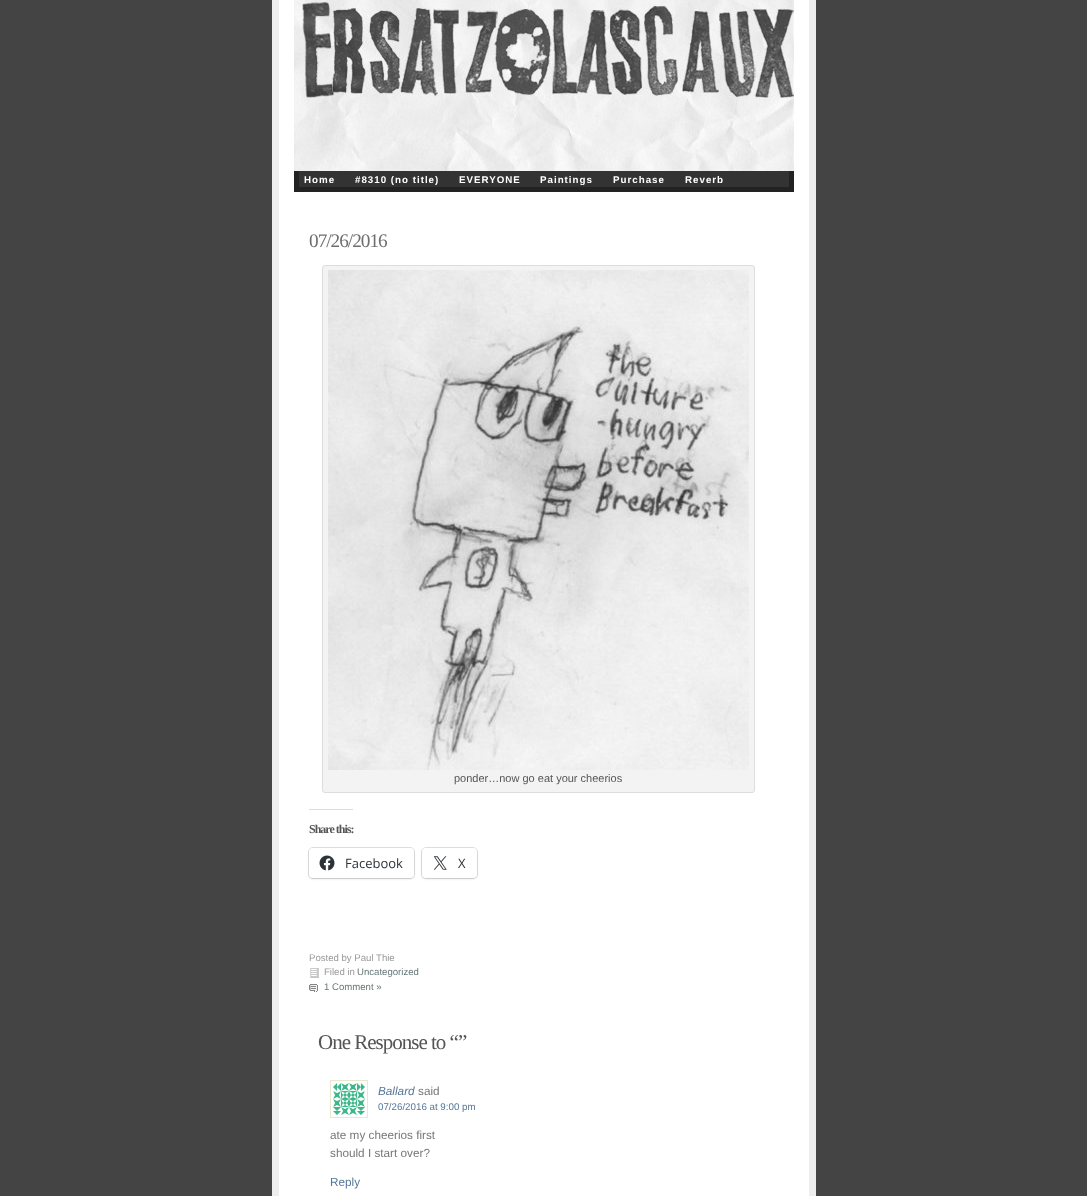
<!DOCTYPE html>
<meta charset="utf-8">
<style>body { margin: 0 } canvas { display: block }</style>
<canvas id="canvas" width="1087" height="1196"></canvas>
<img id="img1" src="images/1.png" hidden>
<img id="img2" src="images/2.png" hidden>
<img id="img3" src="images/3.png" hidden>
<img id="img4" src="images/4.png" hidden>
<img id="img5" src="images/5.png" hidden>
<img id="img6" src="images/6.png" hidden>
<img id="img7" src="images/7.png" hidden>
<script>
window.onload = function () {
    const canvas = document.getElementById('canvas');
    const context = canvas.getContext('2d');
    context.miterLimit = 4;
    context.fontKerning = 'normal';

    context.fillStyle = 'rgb(68, 68, 68)';
    context.fillRect(0, 0, 1087, 1196);
    context.fillStyle = 'rgb(255, 255, 255)';
    context.fillRect(279, 0, 530, 1196);
    context.fillStyle = 'rgb(238, 238, 238)';
    context.fillRect(809, 0, 7, 1196);
    context.fillRect(272, 0, 7, 1196);
    context.drawImage(document.getElementById('img1'), 294, 0, 500, 171);
    context.fillStyle = 'rgb(51, 51, 51)';
    context.fillRect(299, 171, 490, 16);
    context.fillStyle = 'rgb(34, 34, 34)';
    context.fillRect(789, 171, 5, 21);
    context.fillRect(294, 187, 500, 5);
    context.fillRect(294, 171, 5, 21);
    context.fillStyle = 'rgb(243, 243, 243)';
    context.beginPath();
    context.roundRect(322.5, 265.5, 432, 527, 2.5);
    context.fill();
    context.strokeStyle = 'rgb(221, 221, 221)';
    context.stroke();
    context.drawImage(document.getElementById('img2'), 328, 270, 421, 500);
    context.fillStyle = 'rgb(220, 220, 222)';
    context.fillRect(309, 809, 44, 1);
    context.beginPath();
    context.roundRect(308.5, 847.5, 106, 31, 4.5);
    context.strokeStyle = 'rgb(224, 224, 224)';
    context.stroke();
    context.fillStyle = 'rgba(0, 0, 0, 0.12)';
    context.filter = 'blur(1px)';
    context.beginPath();
    context.roundRect(309, 849, 105, 30, 4);
    context.fill();
    context.filter = 'none';
    context.fillStyle = 'rgb(255, 255, 255)';
    context.beginPath();
    context.roundRect(309, 848, 105, 30, 4);
    context.fill();
    context.drawImage(document.getElementById('img3'), 319, 855, 16, 16);
    context.beginPath();
    context.roundRect(421.5, 847.5, 56, 31, 4.5);
    context.stroke();
    context.fillStyle = 'rgba(0, 0, 0, 0.12)';
    context.filter = 'blur(1px)';
    context.beginPath();
    context.roundRect(422, 849, 55, 30, 4);
    context.fill();
    context.filter = 'none';
    context.fillStyle = 'rgb(255, 255, 255)';
    context.beginPath();
    context.roundRect(422, 848, 55, 30, 4);
    context.fill();
    context.drawImage(document.getElementById('img4'), 433, 856, 14, 14);
    context.drawImage(document.getElementById('img5'), 310, 968, 9, 10);
    context.drawImage(document.getElementById('img6'), 309, 984, 9, 8);
    context.strokeStyle = 'rgb(232, 231, 208)';
    context.strokeRect(330.5, 1080.5, 37, 37);
    context.drawImage(document.getElementById('img7'), 333, 1083, 32, 32);
    context.letterSpacing = '1px';
    context.font = 'bold 9.75px Liberation Sans';
    context.fillText('Home', 304, 183);
    context.fillText('#8310 (no title)', 355, 183);
    context.fillText('EVERYONE', 459, 183);
    context.fillText('Paintings', 540, 183);
    context.fillText('Purchase', 613, 183);
    context.fillText('Reverb', 685, 183);
    context.letterSpacing = '-1px';
    context.font = '19.25px Liberation Serif';
    context.fillStyle = 'rgb(111, 111, 111)';
    context.fillText('07/26/2016', 309, 247);
    context.letterSpacing = '0px';
    context.font = '11px Liberation Sans';
    context.fillStyle = 'rgb(85, 85, 85)';
    context.fillText('ponder…now go eat your cheerios', 454, 782);
    context.letterSpacing = '-1px';
    context.font = 'bold 12px Liberation Serif';
    context.fillText('Share this:', 309, 833);
    context.letterSpacing = '0px';
    context.font = '13px Open Sans';
    context.fillStyle = 'rgb(44, 51, 56)';
    context.fillText('Facebook', 345, 868);
    context.fillText('X', 458, 868);
    context.font = '9.6px Liberation Sans';
    context.fillStyle = 'rgb(153, 153, 153)';
    context.fillText('Posted by Paul Thie', 309, 961);
    context.fillText('Filed in', 324, 975);
    context.fillStyle = 'rgb(102, 119, 119)';
    context.fillText('Uncategorized', 357, 975);
    context.fillText('1 Comment »', 324, 990);
    context.letterSpacing = '-1px';
    context.font = '21px Liberation Serif';
    context.fillStyle = 'rgb(85, 85, 85)';
    context.fillText('One Response to “”', 318, 1049);
    context.letterSpacing = '0px';
    context.font = 'italic 11.75px Liberation Sans';
    context.fillStyle = 'rgb(85, 119, 153)';
    context.fillText('Ballard', 378, 1095);
    context.font = '11.75px Liberation Sans';
    context.fillStyle = 'rgb(119, 119, 119)';
    context.fillText('said', 418, 1095);
    context.font = '9.75px Liberation Sans';
    context.fillStyle = 'rgb(85, 119, 153)';
    context.fillText('07/26/2016 at 9:00 pm', 378, 1110);
    context.font = '11.75px Liberation Sans';
    context.fillStyle = 'rgb(119, 119, 119)';
    context.fillText('ate my cheerios first', 330, 1139);
    context.fillText('should I start over?', 330, 1157);
    context.fillStyle = 'rgb(85, 119, 153)';
    context.fillText('Reply', 330, 1186);
};
</script>
